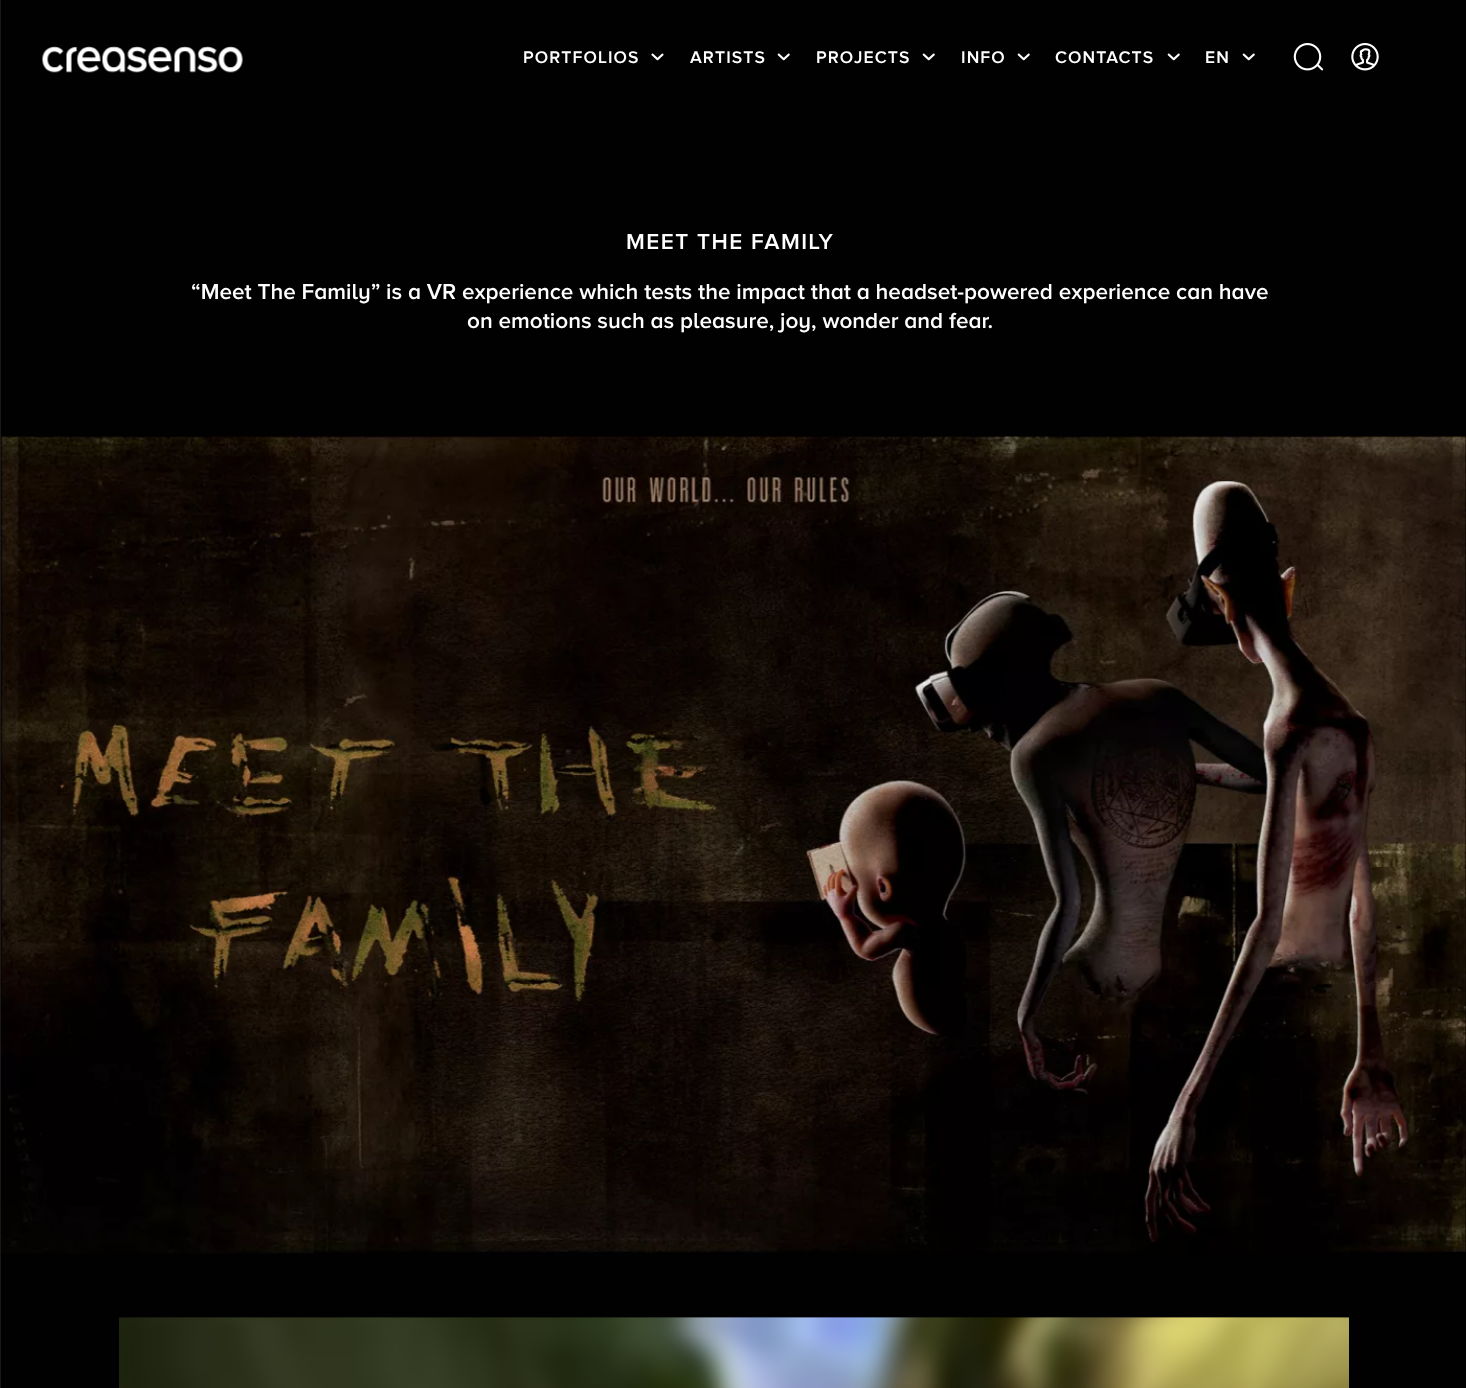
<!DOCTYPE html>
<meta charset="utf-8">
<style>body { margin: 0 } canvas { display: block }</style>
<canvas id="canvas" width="1466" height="1388"></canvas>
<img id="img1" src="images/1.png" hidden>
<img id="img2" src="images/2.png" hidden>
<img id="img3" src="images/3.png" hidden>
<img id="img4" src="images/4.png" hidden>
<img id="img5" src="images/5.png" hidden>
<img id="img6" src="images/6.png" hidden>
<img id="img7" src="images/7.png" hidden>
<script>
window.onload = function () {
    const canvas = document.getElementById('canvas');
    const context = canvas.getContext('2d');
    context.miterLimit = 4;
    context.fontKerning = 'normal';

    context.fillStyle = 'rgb(24, 24, 24)';
    context.fillRect(0, 0, 1466, 1388);
    context.fillStyle = 'rgb(1, 1, 1)';
    context.fillRect(1, 0, 1465, 1388);
    context.drawImage(document.getElementById('img1'), 42, 46, 201, 27);
    context.drawImage(document.getElementById('img2'), 651, 53, 13, 8);
    context.drawImage(document.getElementById('img3'), 777, 53, 13, 8);
    context.drawImage(document.getElementById('img3'), 922, 53, 13, 8);
    context.drawImage(document.getElementById('img3'), 1017, 53, 13, 8);
    context.drawImage(document.getElementById('img3'), 1167, 53, 13, 8);
    context.drawImage(document.getElementById('img3'), 1242, 53, 13, 8);
    context.drawImage(document.getElementById('img4'), 1293, 43, 31, 28);
    context.drawImage(document.getElementById('img5'), 1351, 43, 28, 28);
    context.drawImage(document.getElementById('img6'), 1, 436, 1465, 819);
    context.drawImage(document.getElementById('img7'), 119, 1317, 1230, 71);
    context.letterSpacing = '1.1px';
    context.font = '600 17.5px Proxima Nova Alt';
    context.fillStyle = 'rgb(255, 255, 255)';
    context.fillText('PORTFOLIOS', 523, 63);
    context.fillText('ARTISTS', 690, 63);
    context.fillText('PROJECTS', 816, 63);
    context.fillText('INFO', 961, 63);
    context.fillText('CONTACTS', 1055, 63);
    context.fillText('EN', 1205, 63);
    context.letterSpacing = '1.5px';
    context.font = '600 22.5px Proxima Nova Alt';
    context.fillText('MEET THE FAMILY', 626, 249);
    context.letterSpacing = '0px';
    context.fillText('“Meet The Family” is a VR experience which tests the impact that a headset-powered experience can have', 191, 299);
    context.fillText('on emotions such as pleasure, joy, wonder and fear.', 467, 328);
};
</script>
